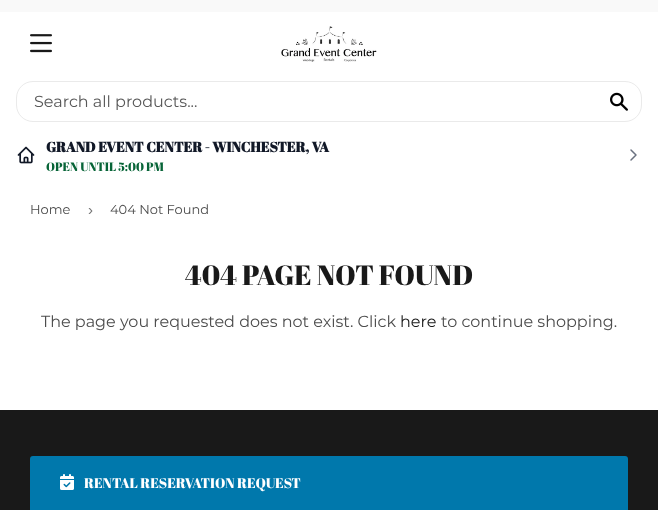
<!DOCTYPE html>
<meta charset="utf-8">
<style>body { margin: 0 } canvas { display: block }</style>
<canvas id="canvas" width="658" height="510"></canvas>
<img id="img1" src="images/1.png" hidden>
<img id="img2" src="images/2.png" hidden>
<img id="img3" src="images/3.png" hidden>
<img id="img4" src="images/4.png" hidden>
<img id="img5" src="images/5.png" hidden>
<script>
window.onload = function () {
    const canvas = document.getElementById('canvas');
    const context = canvas.getContext('2d');
    context.miterLimit = 4;
    context.fontKerning = 'normal';

    context.fillStyle = 'rgb(255, 255, 255)';
    context.fillRect(0, 0, 658, 510);
    context.fillStyle = 'rgb(249, 249, 249)';
    context.fillRect(0, 0, 658, 12);
    context.drawImage(document.getElementById('img1'), 30, 34, 22, 19);
    context.drawImage(document.getElementById('img2'), 281, 26, 96, 36);
    context.beginPath();
    context.roundRect(16.5, 81.5, 625, 40, 16.5);
    context.strokeStyle = 'rgb(234, 234, 234)';
    context.stroke();
    context.drawImage(document.getElementById('img3'), 610, 92, 18, 19);
    context.drawImage(document.getElementById('img4'), 17, 146, 18, 18);
    context.beginPath();
    context.moveTo(631, 150);
    context.lineTo(636, 155);
    context.lineTo(631, 160);
    context.strokeStyle = 'rgb(107, 114, 128)';
    context.lineWidth = 1.5;
    context.lineCap = 'round';
    context.lineJoin = 'round';
    context.stroke();
    context.fillStyle = 'rgb(25, 25, 25)';
    context.fillRect(0, 410, 658, 100);
    context.fillStyle = 'rgb(0, 120, 172)';
    context.beginPath();
    context.roundRect(30, 456, 598, 54, [3, 3, 0, 0]);
    context.fill();
    context.drawImage(document.getElementById('img5'), 60, 474, 14, 16);
    context.font = '16px Montserrat';
    context.fillStyle = 'rgb(88, 88, 88)';
    context.fillText('Search all products...', 34, 107);
    context.font = 'bold 14px Abril Fatface';
    context.fillStyle = 'rgb(17, 24, 39)';
    context.fillText('GRAND EVENT CENTER - WINCHESTER, VA', 46, 152);
    context.font = '12px Abril Fatface';
    context.fillStyle = 'rgb(7, 100, 55)';
    context.fillText('OPEN UNTIL 5:00 PM', 46, 171);
    context.font = '13px Montserrat';
    context.fillStyle = 'rgb(77, 77, 77)';
    context.fillText('Home', 30, 214);
    context.font = '15px Liberation Sans';
    context.fillStyle = 'rgb(118, 118, 118)';
    context.fillText('›', 88, 215);
    context.font = '13px Montserrat';
    context.fillStyle = 'rgb(77, 77, 77)';
    context.fillText('404 Not Found', 110, 214);
    context.font = '27.75px Abril Fatface';
    context.fillStyle = 'rgb(25, 25, 25)';
    context.fillText('404 PAGE NOT FOUND', 185, 285);
    context.font = '16px Montserrat';
    context.fillStyle = 'rgb(77, 77, 77)';
    context.fillText('The page you requested does not exist. Click', 41, 327);
    context.fillStyle = 'rgb(25, 25, 25)';
    context.fillText('here', 400, 327);
    context.fillStyle = 'rgb(77, 77, 77)';
    context.fillText('to continue shopping.', 441, 327);
    context.font = '13.9px Abril Fatface';
    context.fillStyle = 'rgb(255, 255, 255)';
    context.fillText('RENTAL RESERVATION REQUEST', 84, 488);
};
</script>
